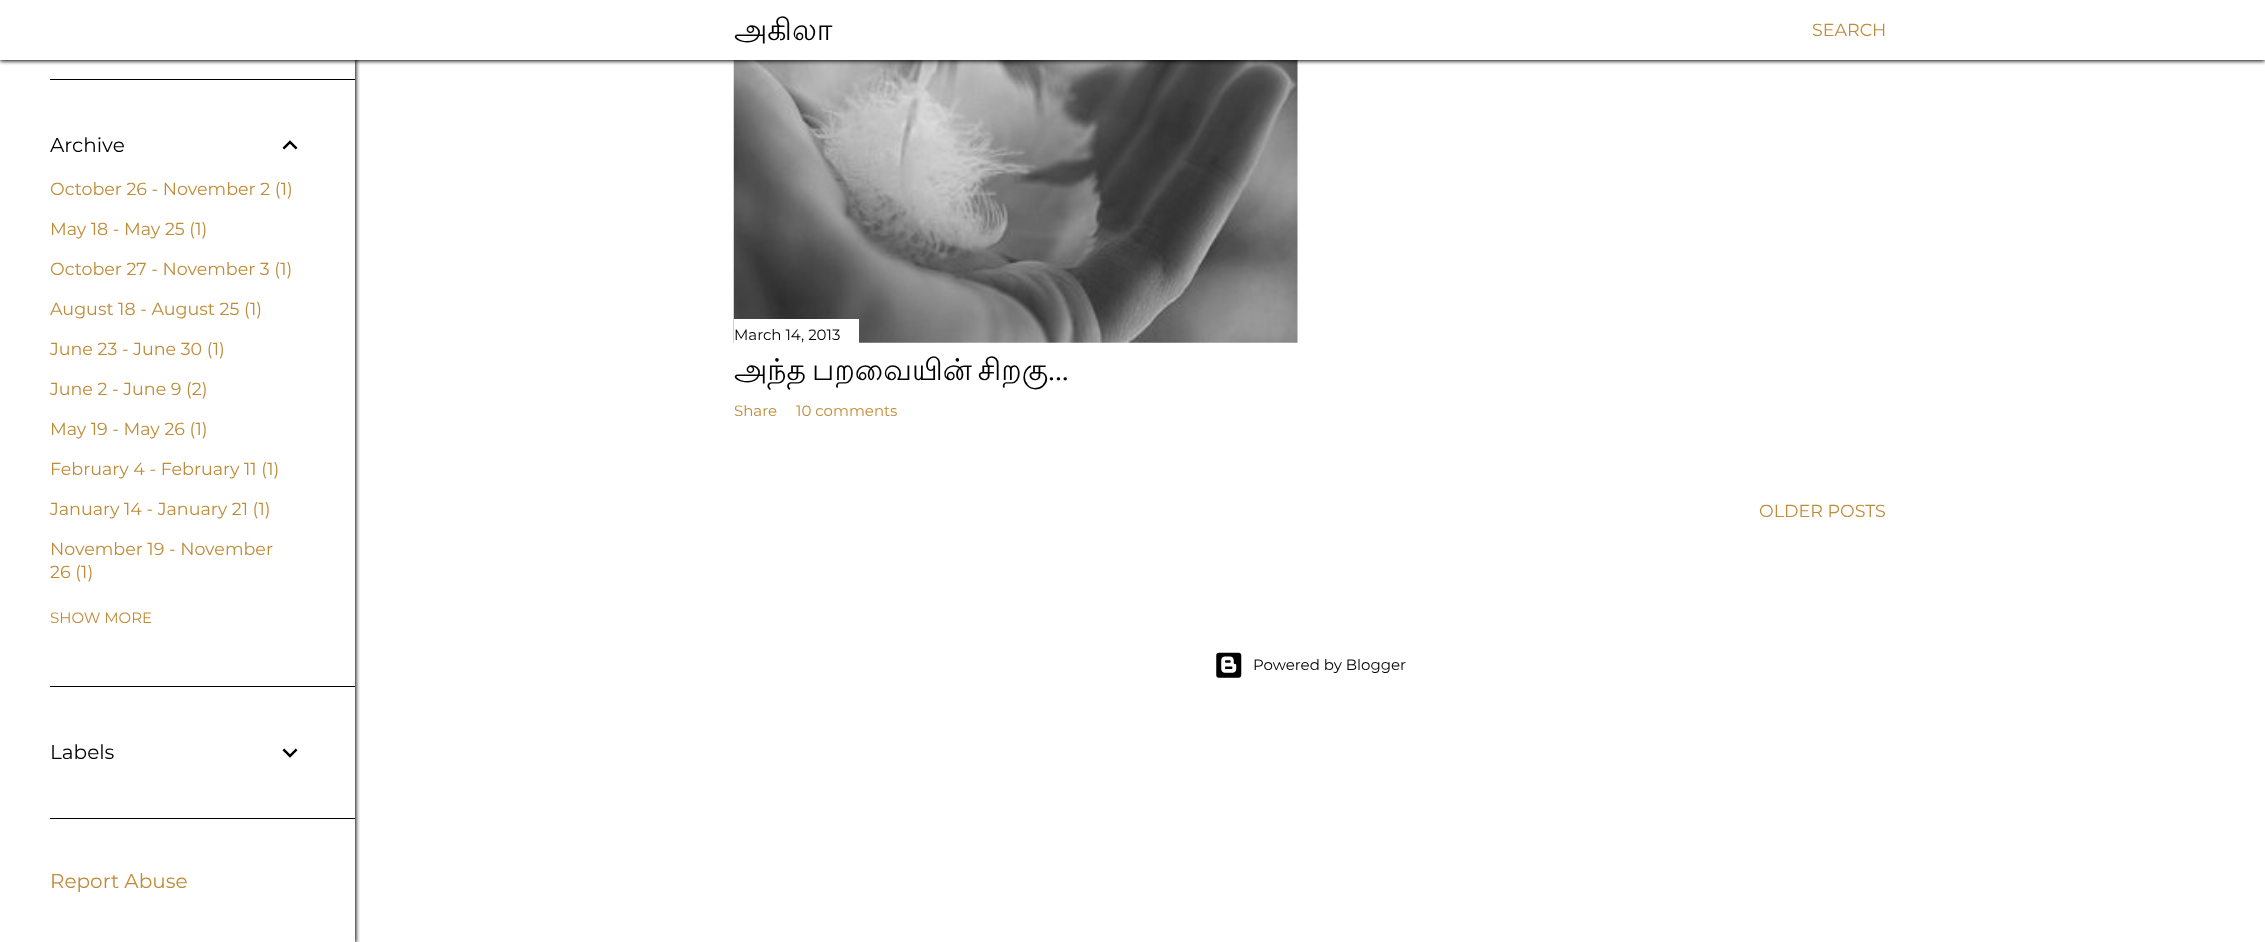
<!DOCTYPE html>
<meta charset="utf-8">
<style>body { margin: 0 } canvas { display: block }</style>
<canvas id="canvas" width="2265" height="942"></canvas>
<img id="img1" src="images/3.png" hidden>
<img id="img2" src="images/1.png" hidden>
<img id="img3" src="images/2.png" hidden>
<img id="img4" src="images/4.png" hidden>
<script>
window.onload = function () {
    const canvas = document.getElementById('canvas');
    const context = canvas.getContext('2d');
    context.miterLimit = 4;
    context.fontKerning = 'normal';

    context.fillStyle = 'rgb(255, 255, 255)';
    context.fillRect(0, 0, 2265, 942);
    context.drawImage(document.getElementById('img1'), 733, 60, 565, 283);
    context.fillStyle = 'rgb(0, 0, 0)';
    context.filter = 'blur(2px)';
    context.beginPath();
    context.rect(0, 1, 2265, 60);
    context.fill();
    context.filter = 'none';
    context.save();
    context.beginPath();
    context.rect(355, 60, 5, 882);
    context.clip();
    context.filter = 'blur(2px)';
    context.beginPath();
    context.rect(1, -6, 355, 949);
    context.fill();
    context.filter = 'none';
    context.restore();
    context.fillStyle = 'rgb(255, 255, 255)';
    context.fillRect(0, 0, 2265, 60);
    context.fillStyle = 'rgb(0, 0, 0)';
    context.fillRect(50, 79, 305, 1);
    context.drawImage(document.getElementById('img2'), 282, 140, 16, 10);
    context.fillRect(50, 686, 305, 1);
    context.drawImage(document.getElementById('img3'), 282, 748, 16, 10);
    context.fillRect(50, 818, 305, 1);
    context.fillStyle = 'rgb(255, 255, 255)';
    context.fillRect(734, 319, 125, 24);
    context.drawImage(document.getElementById('img4'), 1216, 652, 26, 26);
    context.font = '30px Lohit Tamil';
    context.fillStyle = 'rgb(0, 0, 0)';
    context.fillText('அகிலா', 734, 40);
    context.font = '17.5px Montserrat';
    context.fillStyle = 'rgb(191, 139, 56)';
    context.fillText('SEARCH', 1812, 36);
    context.font = '20px Montserrat';
    context.fillStyle = 'rgb(0, 0, 0)';
    context.fillText('Archive', 50, 152);
    context.font = '17.5px Montserrat';
    context.fillStyle = 'rgb(191, 139, 56)';
    context.fillText('October 26 - November 2 (1)', 50, 195);
    context.fillText('May 18 - May 25 (1)', 50, 235);
    context.fillText('October 27 - November 3 (1)', 50, 275);
    context.fillText('August 18 - August 25 (1)', 50, 315);
    context.fillText('June 23 - June 30 (1)', 50, 355);
    context.fillText('June 2 - June 9 (2)', 50, 395);
    context.fillText('May 19 - May 26 (1)', 50, 435);
    context.fillText('February 4 - February 11 (1)', 50, 475);
    context.fillText('January 14 - January 21 (1)', 50, 515);
    context.fillText('November 19 - November', 50, 555);
    context.fillText('26 (1)', 50, 578);
    context.font = '15px Montserrat';
    context.fillText('SHOW MORE', 50, 623);
    context.font = '20px Montserrat';
    context.fillStyle = 'rgb(0, 0, 0)';
    context.fillText('Labels', 50, 759);
    context.fillStyle = 'rgb(191, 139, 56)';
    context.fillText('Report Abuse', 50, 888);
    context.font = '15px Montserrat';
    context.fillStyle = 'rgb(0, 0, 0)';
    context.fillText('March 14, 2013', 734, 340);
    context.wordSpacing = '-3px';
    context.font = '30px Lohit Tamil';
    context.fillText('அந்த பறவையின் சிறகு', 734, 380);
    context.wordSpacing = '0px';
    context.font = '30px EB Garamond';
    context.fillText('...', 1048, 380);
    context.font = '15px Montserrat';
    context.fillStyle = 'rgb(191, 139, 56)';
    context.fillText('Share', 734, 416);
    context.fillText('10 comments', 796, 416);
    context.font = '17.5px Montserrat';
    context.fillText('OLDER POSTS', 1759, 517);
    context.font = '15px Montserrat';
    context.fillStyle = 'rgb(0, 0, 0)';
    context.fillText('Powered by Blogger', 1253, 670);
};
</script>
